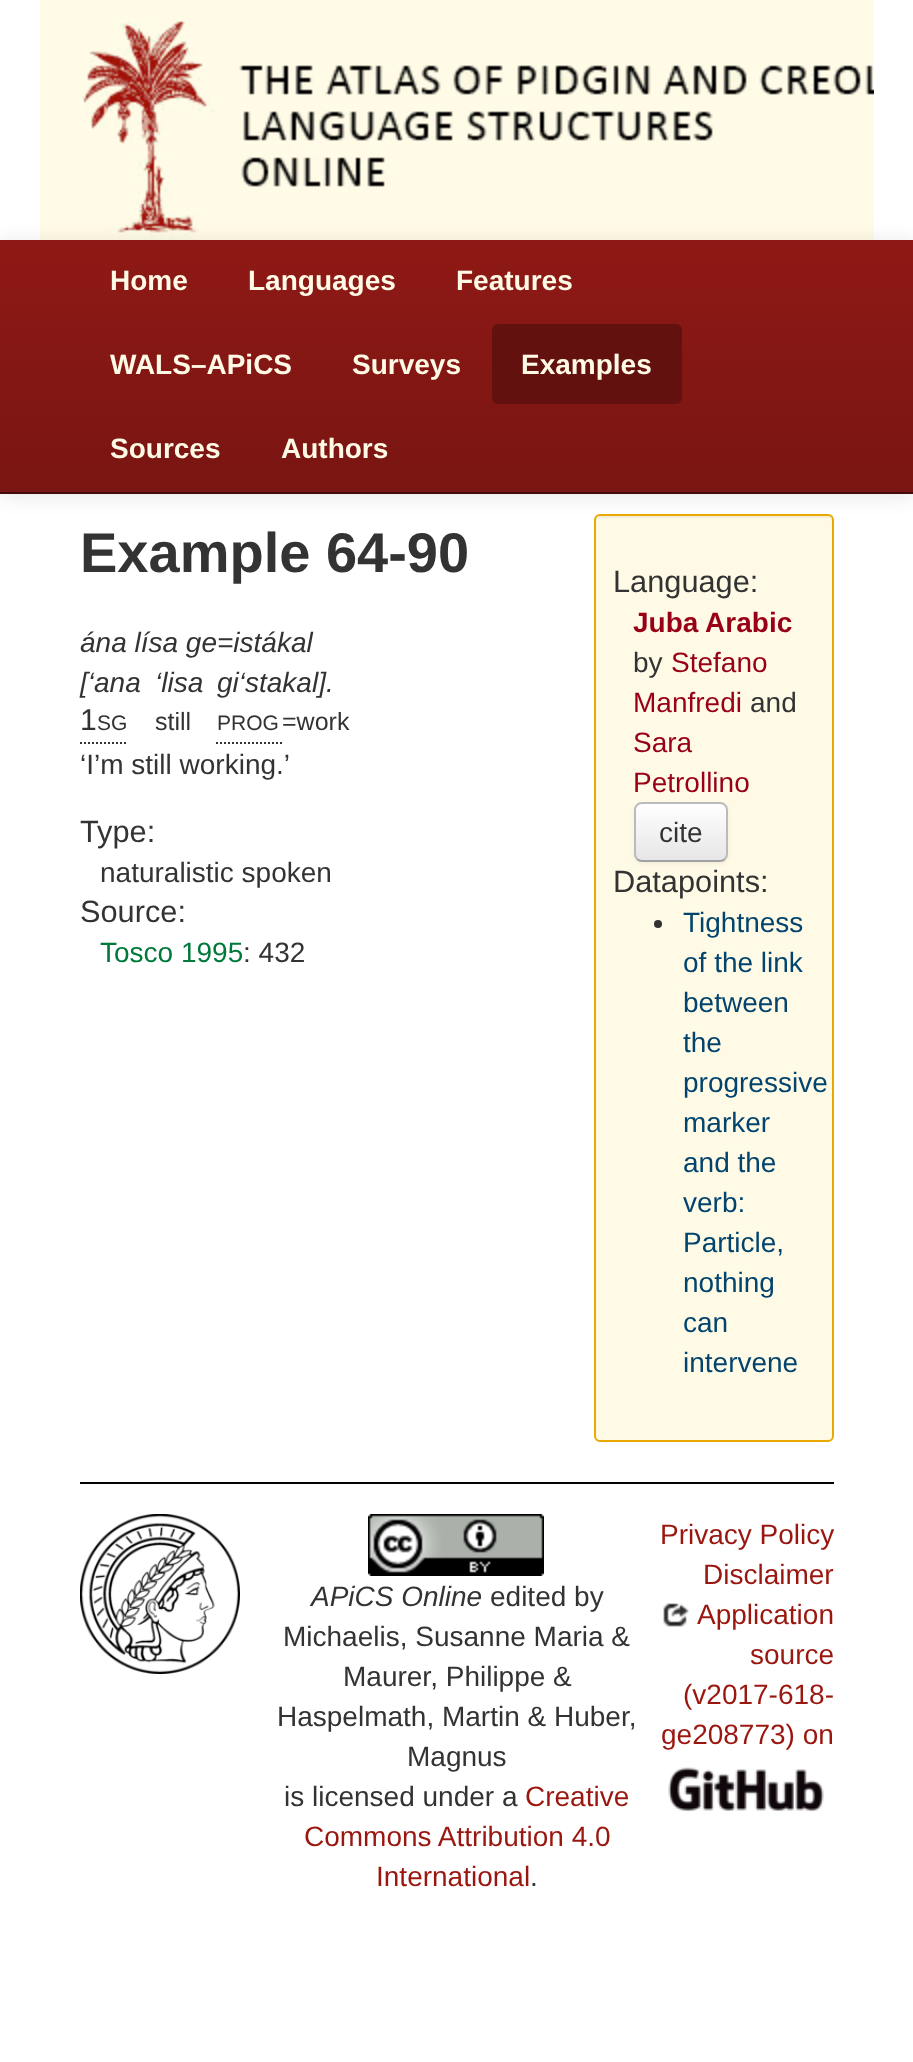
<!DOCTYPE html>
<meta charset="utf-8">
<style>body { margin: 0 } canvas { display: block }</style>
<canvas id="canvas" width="913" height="2062"></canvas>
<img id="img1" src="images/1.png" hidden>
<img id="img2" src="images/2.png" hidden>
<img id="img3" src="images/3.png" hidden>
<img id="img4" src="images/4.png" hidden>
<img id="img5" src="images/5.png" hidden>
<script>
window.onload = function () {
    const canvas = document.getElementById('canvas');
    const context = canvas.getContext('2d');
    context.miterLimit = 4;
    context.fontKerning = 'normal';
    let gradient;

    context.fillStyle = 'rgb(255, 255, 255)';
    context.fillRect(0, 0, 913, 2062);
    context.fillStyle = 'rgb(255, 251, 231)';
    context.fillRect(40, 0, 834, 240);
    context.drawImage(document.getElementById('img1'), 81, 20, 793, 220);
    context.fillStyle = 'rgba(0, 0, 0, 0.1)';
    context.filter = 'blur(10px)';
    context.beginPath();
    context.rect(0, 242, 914, 254);
    context.fill();
    context.filter = 'none';
    gradient = context.createLinearGradient(457, 240, 457, 492);
    gradient.addColorStop(0, 'rgb(143, 25, 21)');
    gradient.addColorStop(1, 'rgb(121, 21, 18)');
    context.fillStyle = gradient;
    context.fillRect(0, 240, 913, 252);
    context.fillStyle = 'rgb(67, 12, 10)';
    context.fillRect(0, 492, 913, 2);
    context.fillStyle = 'rgb(99, 17, 14)';
    context.beginPath();
    context.roundRect(492, 324, 190, 80, 6);
    context.fill();
    context.beginPath();
    context.moveTo(80, 743);
    context.lineTo(128, 743);
    context.strokeStyle = 'rgb(51, 51, 51)';
    context.lineWidth = 2;
    context.setLineDash([2, 2]);
    context.stroke();
    context.beginPath();
    context.moveTo(216, 743);
    context.lineTo(282, 743);
    context.stroke();
    context.fillStyle = 'rgb(255, 250, 230)';
    context.beginPath();
    context.roundRect(594, 514, 240, 928, 6);
    context.fill();
    context.fillStyle = 'rgb(242, 238, 219)';
    context.beginPath();
    context.moveTo(600, 518);
    context.lineTo(828, 518);
    context.bezierCurveTo(830, 518, 832, 520, 832, 522);
    context.lineTo(832, 520);
    context.bezierCurveTo(832, 518, 830, 516, 828, 516);
    context.lineTo(600, 516);
    context.bezierCurveTo(598, 516, 596, 518, 596, 520);
    context.lineTo(596, 522);
    context.bezierCurveTo(596, 520, 598, 518, 600, 518);
    context.closePath();
    context.fill();
    context.beginPath();
    context.roundRect(595, 515, 238, 926, 5);
    context.strokeStyle = 'rgb(233, 169, 1)';
    context.setLineDash([]);
    context.stroke();
    context.fillStyle = 'rgba(0, 0, 0, 0.05)';
    context.filter = 'blur(2px)';
    context.beginPath();
    context.roundRect(634, 804, 94, 60, 8);
    context.fill();
    context.filter = 'none';
    context.save();
    context.beginPath();
    context.roundRect(634, 802, 94, 60, 8);
    context.clip();
    gradient = context.createLinearGradient(681, 804, 681, 860);
    gradient.addColorStop(0, 'rgb(255, 255, 255)');
    gradient.addColorStop(1, 'rgb(230, 230, 230)');
    context.fillStyle = gradient;
    context.fillRect(634, 804, 94, 56);
    context.restore();
    context.fillStyle = 'rgb(255, 255, 255)';
    context.beginPath();
    context.moveTo(642, 806);
    context.lineTo(720, 806);
    context.bezierCurveTo(723, 806, 726, 809, 726, 812);
    context.bezierCurveTo(726, 801, 716, 804, 707, 804);
    context.lineTo(655, 804);
    context.bezierCurveTo(646, 804, 636, 801, 636, 812);
    context.bezierCurveTo(636, 809, 639, 806, 642, 806);
    context.closePath();
    context.fill();
    context.beginPath();
    context.moveTo(725, 859);
    context.bezierCurveTo(723.5, 860.5, 722, 861, 720, 861);
    context.lineTo(642, 861);
    context.bezierCurveTo(640, 861, 638.5, 860.5, 637, 859);
    context.strokeStyle = 'rgb(162, 162, 162)';
    context.stroke();
    context.beginPath();
    context.moveTo(637, 859);
    context.bezierCurveTo(635.5, 857.5, 635, 856, 635, 854);
    context.lineTo(635, 810);
    context.bezierCurveTo(635, 808, 635.5, 806.5, 637, 805);
    context.bezierCurveTo(638.5, 803.5, 640, 803, 642, 803);
    context.lineTo(720, 803);
    context.bezierCurveTo(722, 803, 723.5, 803.5, 725, 805);
    context.bezierCurveTo(726.5, 806.5, 727, 808, 727, 810);
    context.lineTo(727, 854);
    context.bezierCurveTo(727, 856, 726.5, 857.5, 725, 859);
    context.strokeStyle = 'rgb(187, 187, 187)';
    context.stroke();
    context.fillStyle = 'rgb(51, 51, 51)';
    context.beginPath();
    context.arc(658, 924, 4, 0, 2 * Math.PI);
    context.fill();
    context.fillStyle = 'rgb(0, 0, 0)';
    context.fillRect(80, 1482, 754, 2);
    context.drawImage(document.getElementById('img2'), 80, 1514, 160, 160);
    context.drawImage(document.getElementById('img3'), 368, 1514, 176, 62);
    context.drawImage(document.getElementById('img4'), 663, 1603, 26, 24);
    context.drawImage(document.getElementById('img5'), 668, 1767, 156, 45);
    context.font = 'bold 28px Liberation Sans';
    context.fillStyle = 'rgb(255, 250, 230)';
    context.fillText('Home', 110, 290);
    context.fillText('Languages', 248, 290);
    context.fillText('Features', 456, 290);
    context.fillText('WALS–APiCS', 110, 374);
    context.fillText('Surveys', 352, 374);
    context.fillText('Examples', 521, 374);
    context.fillText('Sources', 110, 458);
    context.fillText('Authors', 281, 458);
    context.font = 'bold 56px Liberation Sans';
    context.fillStyle = 'rgb(51, 51, 51)';
    context.fillText('Example 64-90', 80, 572);
    context.font = 'italic 28px Liberation Sans';
    context.fillText('ána lísa ge=istákal', 80, 652);
    context.fillText('[‘ana', 80, 692);
    context.font = '30px Liberation Sans';
    context.fillText('1', 80, 730);
    context.font = '21px Liberation Sans';
    context.fillText('SG', 97, 730);
    context.font = 'italic 28px Liberation Sans';
    context.fillText('‘lisa', 155, 692);
    context.font = '25px Liberation Sans';
    context.fillText('still', 155, 730);
    context.font = 'italic 28px Liberation Sans';
    context.fillText('gi‘stakal].', 217, 692);
    context.font = '21px Liberation Sans';
    context.fillText('PROG', 217, 730);
    context.font = '25px Liberation Sans';
    context.fillText('=work', 282, 730);
    context.font = '28px Liberation Sans';
    context.fillText('‘I’m still working.’', 80, 774);
    context.font = '30.75px Liberation Sans';
    context.fillText('Type:', 80, 842);
    context.font = '28px Liberation Sans';
    context.fillText('naturalistic spoken', 100, 882);
    context.font = '30.75px Liberation Sans';
    context.fillText('Source:', 80, 922);
    context.font = '28px Liberation Sans';
    context.fillStyle = 'rgb(0, 121, 59)';
    context.fillText('Tosco 1995', 100, 962);
    context.fillStyle = 'rgb(51, 51, 51)';
    context.fillText(': 432', 243, 962);
    context.font = '30.75px Liberation Sans';
    context.fillText('Language:', 613, 592);
    context.font = 'bold 28px Liberation Sans';
    context.fillStyle = 'rgb(152, 0, 21)';
    context.fillText('Juba Arabic', 633, 632);
    context.font = '28px Liberation Sans';
    context.fillStyle = 'rgb(51, 51, 51)';
    context.fillText('by', 633, 672);
    context.fillStyle = 'rgb(152, 0, 21)';
    context.fillText('Stefano', 671, 672);
    context.fillText('Manfredi', 633, 712);
    context.fillStyle = 'rgb(51, 51, 51)';
    context.fillText('and', 750, 712);
    context.fillStyle = 'rgb(152, 0, 21)';
    context.fillText('Sara', 633, 752);
    context.fillText('Petrollino', 633, 792);
    context.fillStyle = 'rgb(51, 51, 51)';
    context.fillText('cite', 659, 842);
    context.font = '30.75px Liberation Sans';
    context.fillText('Datapoints:', 613, 892);
    context.font = '28px Liberation Sans';
    context.fillStyle = 'rgb(2, 68, 110)';
    context.fillText('Tightness', 683, 932);
    context.fillText('of the link', 683, 972);
    context.fillText('between', 683, 1012);
    context.fillText('the', 683, 1052);
    context.fillText('progressive', 683, 1092);
    context.fillText('marker', 683, 1132);
    context.fillText('and the', 683, 1172);
    context.fillText('verb:', 683, 1212);
    context.fillText('Particle,', 683, 1252);
    context.fillText('nothing', 683, 1292);
    context.fillText('can', 683, 1332);
    context.fillText('intervene', 683, 1372);
    context.font = 'italic 28px Liberation Sans';
    context.fillStyle = 'rgb(51, 51, 51)';
    context.fillText('APiCS Online', 311, 1606);
    context.font = '28px Liberation Sans';
    context.fillText('edited by', 490, 1606);
    context.fillText('Michaelis, Susanne Maria &', 283, 1646);
    context.fillText('Maurer, Philippe &', 343, 1686);
    context.fillText('Haspelmath, Martin & Huber,', 277, 1726);
    context.fillText('Magnus', 407, 1766);
    context.fillText('is licensed under a', 284, 1806);
    context.fillStyle = 'rgb(154, 23, 15)';
    context.fillText('Creative', 525, 1806);
    context.fillText('Commons Attribution 4.0', 304, 1846);
    context.fillText('International', 376, 1886);
    context.fillStyle = 'rgb(51, 51, 51)';
    context.fillText('.', 530, 1886);
    context.fillStyle = 'rgb(154, 23, 15)';
    context.fillText('Privacy Policy', 660, 1544);
    context.fillText('Disclaimer', 703, 1584);
    context.fillText('Application', 697, 1624);
    context.fillText('source', 750, 1664);
    context.fillText('(v2017-618-', 683, 1704);
    context.fillText('ge208773) on', 661, 1744);
};
</script>
